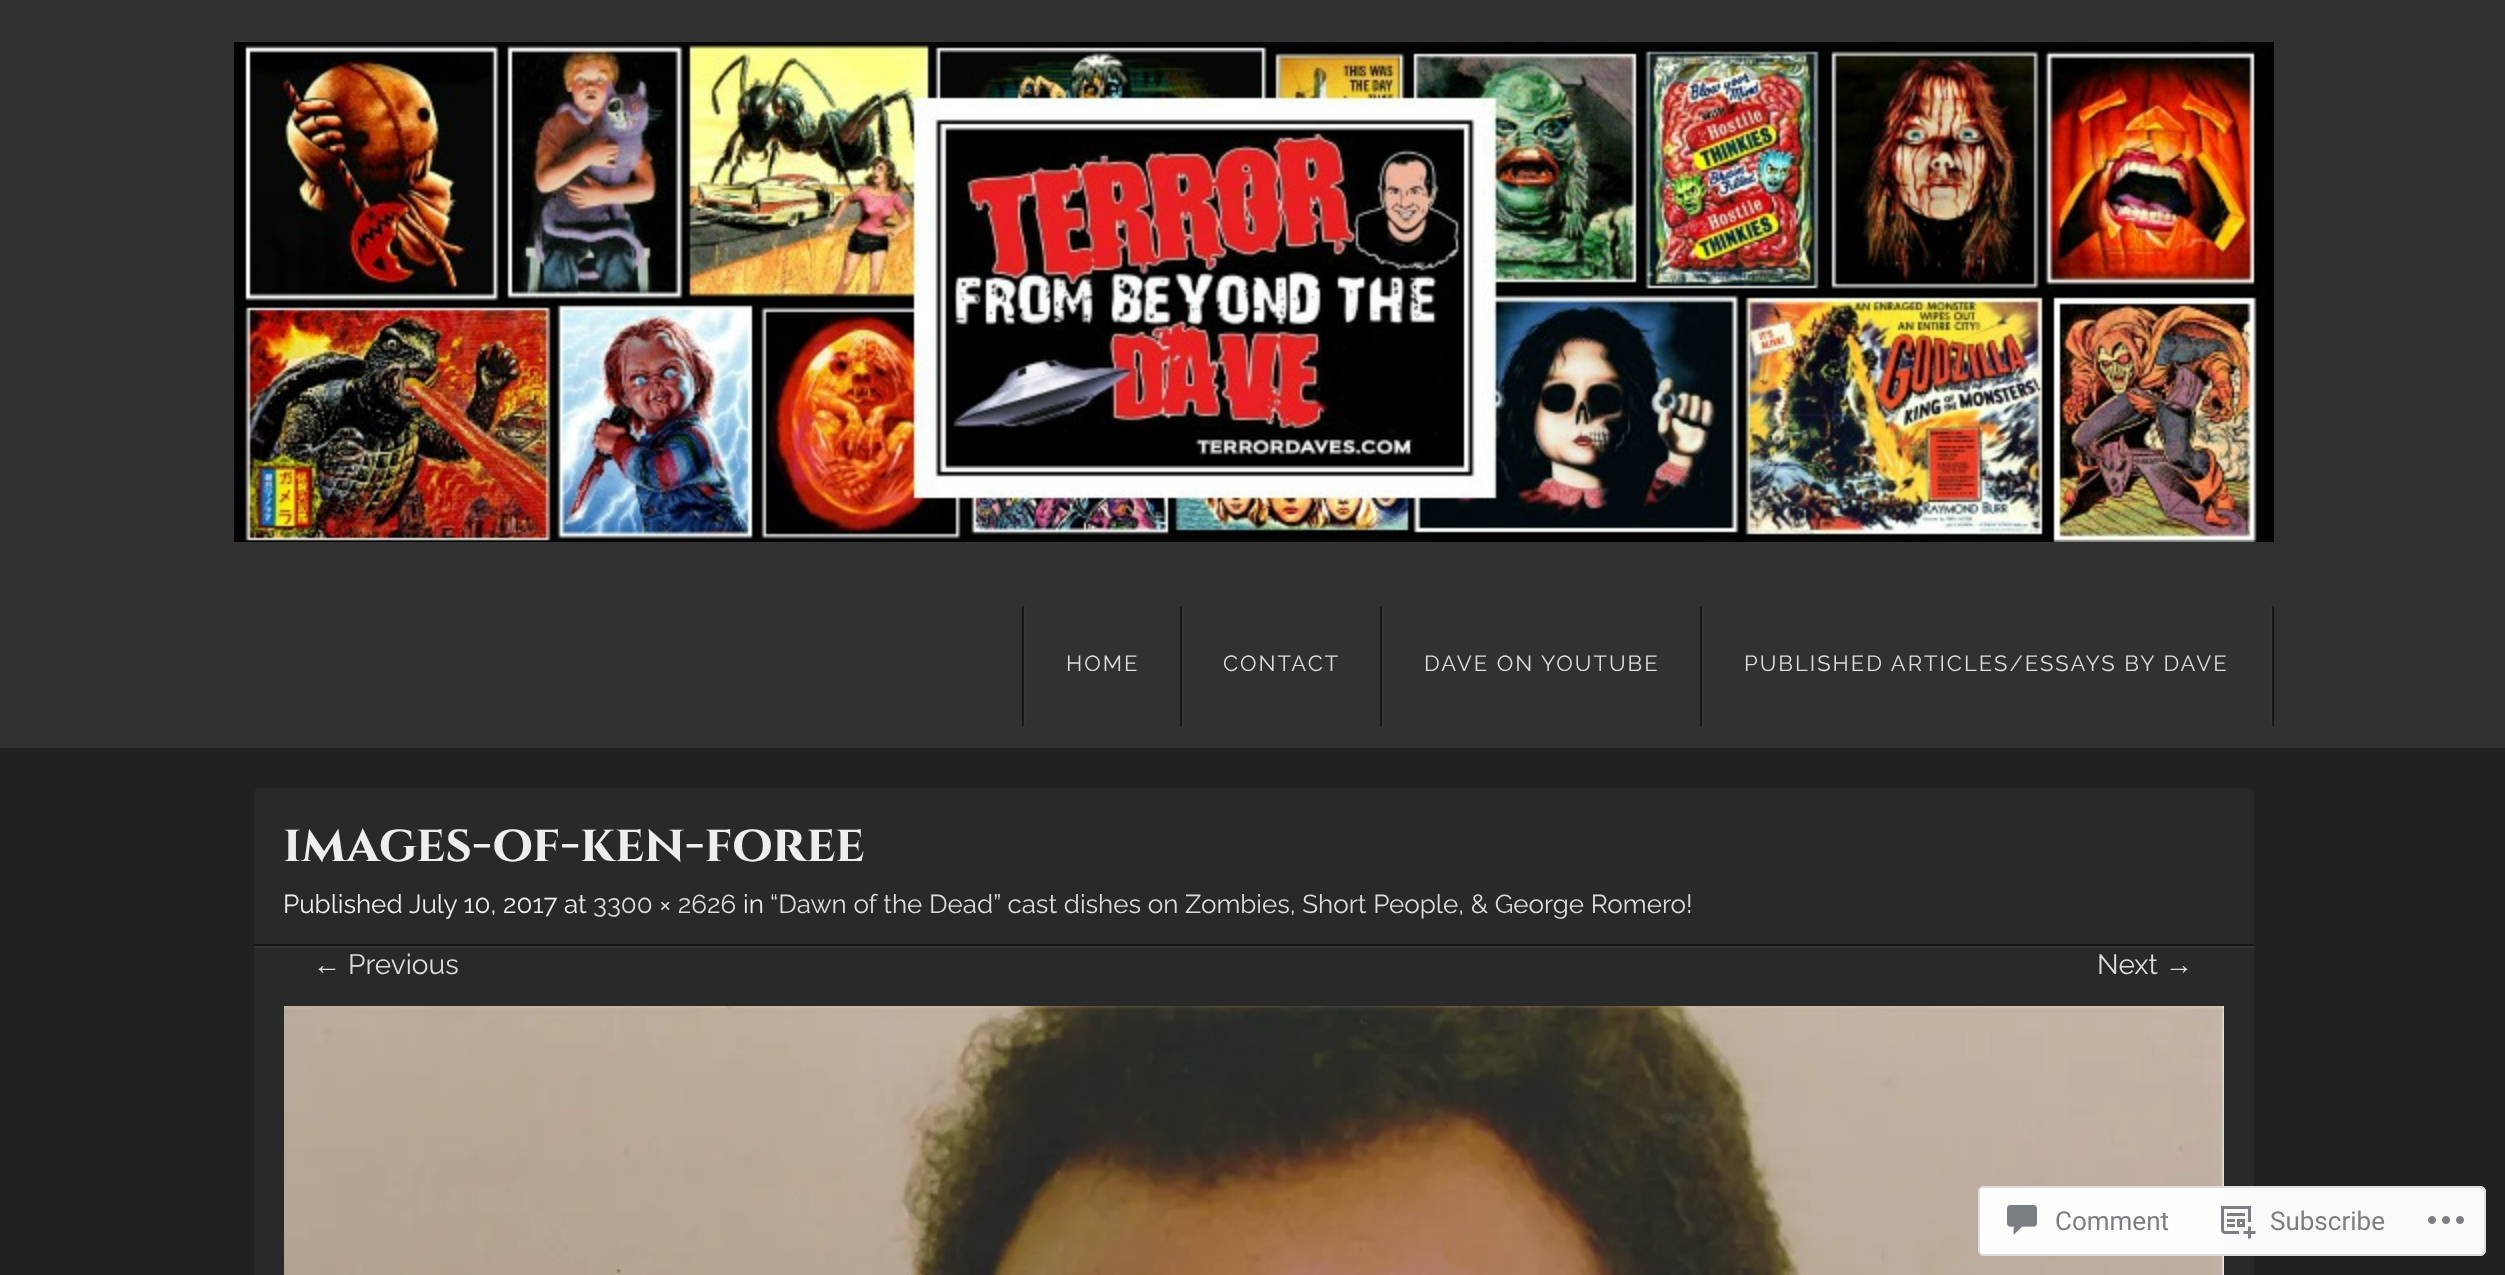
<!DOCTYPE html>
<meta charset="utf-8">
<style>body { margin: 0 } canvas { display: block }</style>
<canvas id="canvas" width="2505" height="1275"></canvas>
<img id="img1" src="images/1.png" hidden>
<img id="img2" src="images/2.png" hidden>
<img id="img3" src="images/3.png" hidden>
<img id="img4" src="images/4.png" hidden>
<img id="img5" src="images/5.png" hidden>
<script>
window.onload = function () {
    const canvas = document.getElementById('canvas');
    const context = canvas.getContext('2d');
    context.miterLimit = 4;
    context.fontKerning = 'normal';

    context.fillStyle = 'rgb(33, 33, 33)';
    context.fillRect(0, 0, 2505, 1275);
    context.fillStyle = 'rgb(49, 49, 49)';
    context.fillRect(0, 0, 2505, 748);
    context.drawImage(document.getElementById('img1'), 234, 42, 2040, 500);
    context.fillStyle = 'rgb(22, 22, 22)';
    context.fillRect(2272, 606, 2, 120);
    context.fillRect(1022, 606, 2, 120);
    context.fillStyle = 'rgb(54, 54, 54)';
    context.fillRect(1024, 606, 2, 120);
    context.fillStyle = 'rgb(22, 22, 22)';
    context.fillRect(1180, 606, 2, 120);
    context.fillStyle = 'rgb(54, 54, 54)';
    context.fillRect(1182, 606, 2, 120);
    context.fillStyle = 'rgb(22, 22, 22)';
    context.fillRect(1380, 606, 2, 120);
    context.fillStyle = 'rgb(54, 54, 54)';
    context.fillRect(1382, 606, 2, 120);
    context.fillStyle = 'rgb(22, 22, 22)';
    context.fillRect(1700, 606, 2, 120);
    context.fillStyle = 'rgb(54, 54, 54)';
    context.fillRect(2270, 606, 2, 120);
    context.fillRect(1702, 606, 2, 120);
    context.fillStyle = 'rgb(41, 41, 41)';
    context.beginPath();
    context.roundRect(254, 788, 2000, 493, 6);
    context.fill();
    context.fillStyle = 'rgb(22, 22, 22)';
    context.fillRect(254, 944, 2000, 2);
    context.fillStyle = 'rgb(54, 54, 54)';
    context.fillRect(254, 946, 2000, 2);
    context.drawImage(document.getElementById('img2'), 284, 1006, 1940, 269);
    context.fillStyle = 'rgba(255, 255, 255, 0.98)';
    context.beginPath();
    context.roundRect(1978, 1186, 508, 70, 6);
    context.fill();
    context.beginPath();
    context.roundRect(1979, 1187, 506, 68, 5);
    context.strokeStyle = 'rgba(220, 220, 222, 0.98)';
    context.lineWidth = 2;
    context.stroke();
    context.drawImage(document.getElementById('img3'), 2007, 1205, 30, 30);
    context.drawImage(document.getElementById('img4'), 2221, 1206, 35, 33);
    context.drawImage(document.getElementById('img5'), 2428, 1216, 36, 8);
    context.letterSpacing = '2px';
    context.font = '22px Raleway';
    context.fillStyle = 'rgb(221, 221, 221)';
    context.fillText('HOME', 1066, 671);
    context.fillText('CONTACT', 1223, 671);
    context.fillText('DAVE ON YOUTUBE', 1424, 671);
    context.fillText('PUBLISHED ARTICLES/ESSAYS BY DAVE', 1744, 671);
    context.letterSpacing = '0px';
    context.font = 'bold 52px Cinzel';
    context.fillStyle = 'rgb(238, 238, 238)';
    context.fillText('images-of-ken-foree', 283, 861);
    context.font = '26px Raleway';
    context.fillText('Published', 283, 913);
    context.fillText('July 10, 2017 at', 409, 913);
    context.fillStyle = 'rgb(221, 221, 221)';
    context.fillText('3300 × 2626', 593, 913);
    context.fillStyle = 'rgb(238, 238, 238)';
    context.fillText('in', 743, 913);
    context.fillStyle = 'rgb(221, 221, 221)';
    context.fillText('“Dawn of the Dead” cast dishes on Zombies, Short People, & George Romero!', 770, 913);
    context.font = '28px Liberation Sans';
    context.fillText('←', 313, 974);
    context.font = '28px Raleway';
    context.fillText('Previous', 348, 974);
    context.fillText('Next', 2097, 974);
    context.font = '28px Liberation Sans';
    context.fillText('→', 2165, 974);
    context.font = '26px Roboto';
    context.fillStyle = 'rgb(123, 127, 132)';
    context.fillText('Comment', 2055, 1230);
    context.fillText('Subscribe', 2270, 1230);
};
</script>
